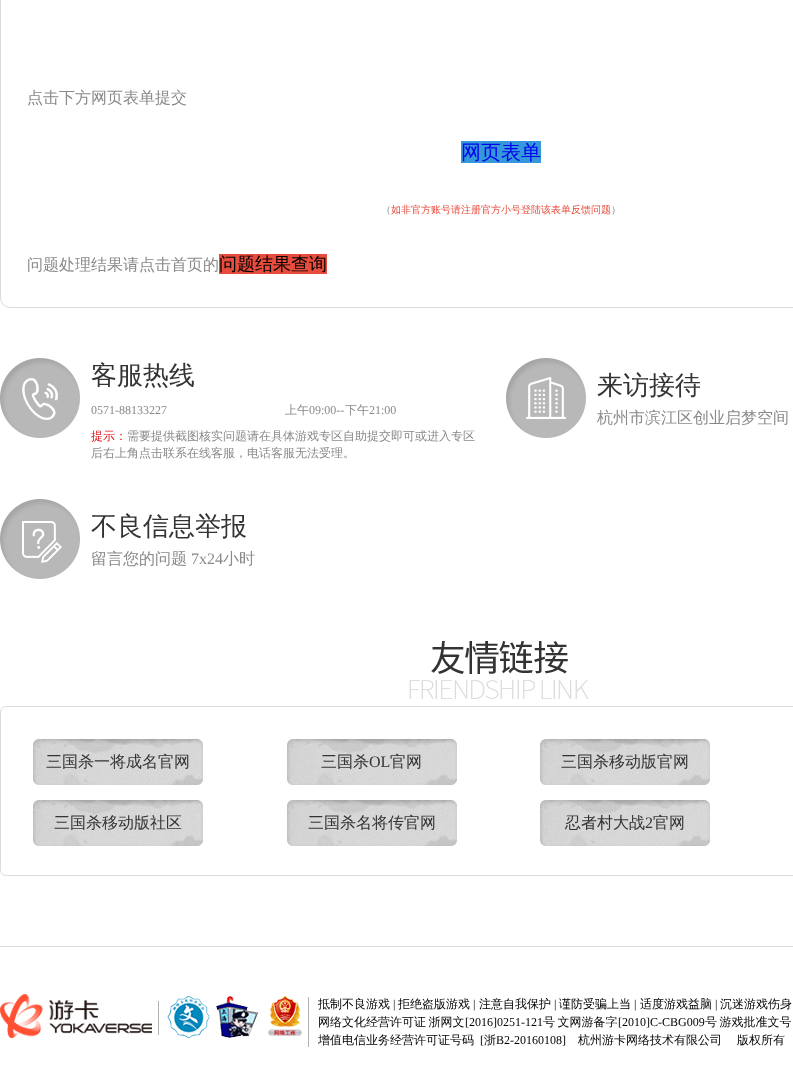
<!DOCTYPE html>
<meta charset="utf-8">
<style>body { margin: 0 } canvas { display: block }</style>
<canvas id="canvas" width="793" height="1086"></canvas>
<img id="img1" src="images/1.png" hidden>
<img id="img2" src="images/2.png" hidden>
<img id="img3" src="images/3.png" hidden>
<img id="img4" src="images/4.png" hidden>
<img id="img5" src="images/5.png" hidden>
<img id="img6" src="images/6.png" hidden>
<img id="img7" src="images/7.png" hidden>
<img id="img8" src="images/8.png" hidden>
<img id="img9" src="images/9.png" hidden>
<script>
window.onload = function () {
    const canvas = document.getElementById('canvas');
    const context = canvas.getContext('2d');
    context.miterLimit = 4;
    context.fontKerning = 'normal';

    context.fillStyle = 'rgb(255, 255, 255)';
    context.fillRect(0, 0, 793, 1086);
    context.beginPath();
    context.roundRect(0.5, -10.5, 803, 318, 9.5);
    context.strokeStyle = 'rgb(220, 220, 220)';
    context.stroke();
    context.fillStyle = 'rgb(52, 152, 219)';
    context.fillRect(461, 141, 80, 22);
    context.fillStyle = 'rgb(231, 76, 60)';
    context.fillRect(219, 254, 108, 20);
    context.drawImage(document.getElementById('img1'), 0, 358, 80, 80);
    context.drawImage(document.getElementById('img2'), 506, 358, 80, 80);
    context.drawImage(document.getElementById('img3'), 0, 499, 80, 80);
    context.drawImage(document.getElementById('img4'), 409, 641, 180, 58);
    context.beginPath();
    context.roundRect(0.5, 706.5, 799, 169, 5.5);
    context.stroke();
    context.drawImage(document.getElementById('img5'), 33, 739, 170, 46);
    context.drawImage(document.getElementById('img5'), 287, 739, 170, 46);
    context.drawImage(document.getElementById('img5'), 540, 739, 170, 46);
    context.drawImage(document.getElementById('img5'), 33, 800, 170, 46);
    context.drawImage(document.getElementById('img5'), 287, 800, 170, 46);
    context.drawImage(document.getElementById('img5'), 540, 800, 170, 46);
    context.fillStyle = 'rgb(220, 220, 220)';
    context.fillRect(0, 946, 793, 1);
    context.drawImage(document.getElementById('img6'), 0, 994, 152, 44);
    context.fillStyle = 'rgb(178, 178, 178)';
    context.fillRect(158, 1001, 1, 34);
    context.drawImage(document.getElementById('img7'), 167, 996, 43, 42);
    context.drawImage(document.getElementById('img8'), 216, 996, 43, 42);
    context.drawImage(document.getElementById('img9'), 268, 996, 34, 40);
    context.fillRect(308, 997, 1, 50);
    context.font = '500 16px WenQuanYi Zen Hei';
    context.fillStyle = 'rgb(137, 137, 137)';
    context.fillText('点击下方网页表单提交', 27, 103);
    context.font = '500 20px WenQuanYi Zen Hei';
    context.fillStyle = 'rgb(0, 0, 238)';
    context.fillText('网页表单', 461, 159);
    context.font = '500 10px WenQuanYi Zen Hei';
    context.fillStyle = 'rgb(137, 137, 137)';
    context.fillText('（', 381, 213);
    context.fillStyle = 'rgb(231, 76, 60)';
    context.fillText('如非官方账号请注册官方小号登陆该表单反馈问题', 391, 213);
    context.fillStyle = 'rgb(137, 137, 137)';
    context.fillText('）', 611, 213);
    context.font = '500 16px WenQuanYi Zen Hei';
    context.fillText('问题处理结果请点击首页的', 27, 270);
    context.font = '500 18px WenQuanYi Zen Hei';
    context.fillStyle = 'rgb(0, 0, 0)';
    context.fillText('问题结果查询', 219, 270);
    context.font = '500 26px WenQuanYi Zen Hei';
    context.fillStyle = 'rgb(51, 51, 51)';
    context.fillText('客服热线', 91, 384);
    context.font = '12px Liberation Serif';
    context.fillStyle = 'rgb(137, 137, 137)';
    context.fillText('0571-88133227', 91, 414);
    context.font = '500 12px WenQuanYi Zen Hei';
    context.fillText('上午', 285, 414);
    context.font = '12px Liberation Serif';
    context.fillText('09:00--', 309, 414);
    context.font = '500 12px WenQuanYi Zen Hei';
    context.fillText('下午', 345, 414);
    context.font = '12px Liberation Serif';
    context.fillText('21:00', 369, 414);
    context.font = '500 12px WenQuanYi Zen Hei';
    context.fillStyle = 'rgb(227, 16, 24)';
    context.fillText('提示：', 91, 440);
    context.fillStyle = 'rgb(137, 137, 137)';
    context.fillText('需要提供截图核实问题请在具体游戏专区自助提交即可或进入专区', 127, 440);
    context.fillText('后右上角点击联系在线客服，电话客服无法受理。', 91, 457);
    context.font = '500 26px WenQuanYi Zen Hei';
    context.fillStyle = 'rgb(51, 51, 51)';
    context.fillText('来访接待', 597, 394);
    context.font = '500 16px WenQuanYi Zen Hei';
    context.fillStyle = 'rgb(137, 137, 137)';
    context.fillText('杭州市滨江区创业启梦空间', 597, 423);
    context.font = '500 26px WenQuanYi Zen Hei';
    context.fillStyle = 'rgb(51, 51, 51)';
    context.fillText('不良信息举报', 91, 535);
    context.font = '500 16px WenQuanYi Zen Hei';
    context.fillStyle = 'rgb(137, 137, 137)';
    context.fillText('留言您的问题', 91, 564);
    context.font = '16px Liberation Serif';
    context.fillText('7x24', 191, 564);
    context.font = '500 16px WenQuanYi Zen Hei';
    context.fillText('小时', 223, 564);
    context.fillStyle = 'rgb(51, 51, 51)';
    context.fillText('三国杀一将成名官网', 46, 767);
    context.fillText('三国杀', 321, 767);
    context.font = '16px Liberation Serif';
    context.fillText('OL', 369, 767);
    context.font = '500 16px WenQuanYi Zen Hei';
    context.fillText('官网', 390, 767);
    context.fillText('三国杀移动版官网', 561, 767);
    context.fillText('三国杀移动版社区', 54, 828);
    context.fillText('三国杀名将传官网', 308, 828);
    context.fillText('忍者村大战', 565, 828);
    context.font = '16px Liberation Serif';
    context.fillText('2', 645, 828);
    context.font = '500 16px WenQuanYi Zen Hei';
    context.fillText('官网', 653, 828);
    context.font = '500 12px WenQuanYi Zen Hei';
    context.fillStyle = 'rgb(0, 0, 0)';
    context.fillText('抵制不良游戏', 318, 1008);
    context.font = '12px Liberation Serif';
    context.fillText('|', 393, 1008);
    context.font = '500 12px WenQuanYi Zen Hei';
    context.fillText('拒绝盗版游戏', 398, 1008);
    context.font = '12px Liberation Serif';
    context.fillText('|', 473, 1008);
    context.font = '500 12px WenQuanYi Zen Hei';
    context.fillText('注意自我保护', 479, 1008);
    context.font = '12px Liberation Serif';
    context.fillText('|', 554, 1008);
    context.font = '500 12px WenQuanYi Zen Hei';
    context.fillText('谨防受骗上当', 559, 1008);
    context.font = '12px Liberation Serif';
    context.fillText('|', 634, 1008);
    context.font = '500 12px WenQuanYi Zen Hei';
    context.fillText('适度游戏益脑', 640, 1008);
    context.font = '12px Liberation Serif';
    context.fillText('|', 715, 1008);
    context.font = '500 12px WenQuanYi Zen Hei';
    context.fillText('沉迷游戏伤身', 720, 1008);
    context.wordSpacing = '-1px';
    context.fillText('网络文化经营许可证 浙网文', 318, 1026);
    context.wordSpacing = '0px';
    context.font = '12px Liberation Serif';
    context.fillText('[2016]0251-121', 465, 1026);
    context.wordSpacing = '-1px';
    context.font = '500 12px WenQuanYi Zen Hei';
    context.fillText('号 文网游备字', 543, 1026);
    context.wordSpacing = '0px';
    context.font = '12px Liberation Serif';
    context.fillText('[2010]C-CBG009', 618, 1026);
    context.wordSpacing = '-1px';
    context.font = '500 12px WenQuanYi Zen Hei';
    context.fillText('号 游戏批准文号', 705, 1026);
    context.wordSpacing = '0px';
    context.fillText('增值电信业务经营许可证号码', 318, 1044);
    context.font = '12px Liberation Serif';
    context.fillText('[', 480, 1044);
    context.font = '500 12px WenQuanYi Zen Hei';
    context.fillText('浙', 484, 1044);
    context.font = '12px Liberation Serif';
    context.fillText('B2-20160108]', 496, 1044);
    context.font = '500 12px WenQuanYi Zen Hei';
    context.fillText('杭州游卡网络技术有限公司', 578, 1044);
    context.fillText('版权所有', 737, 1044);
};
</script>
